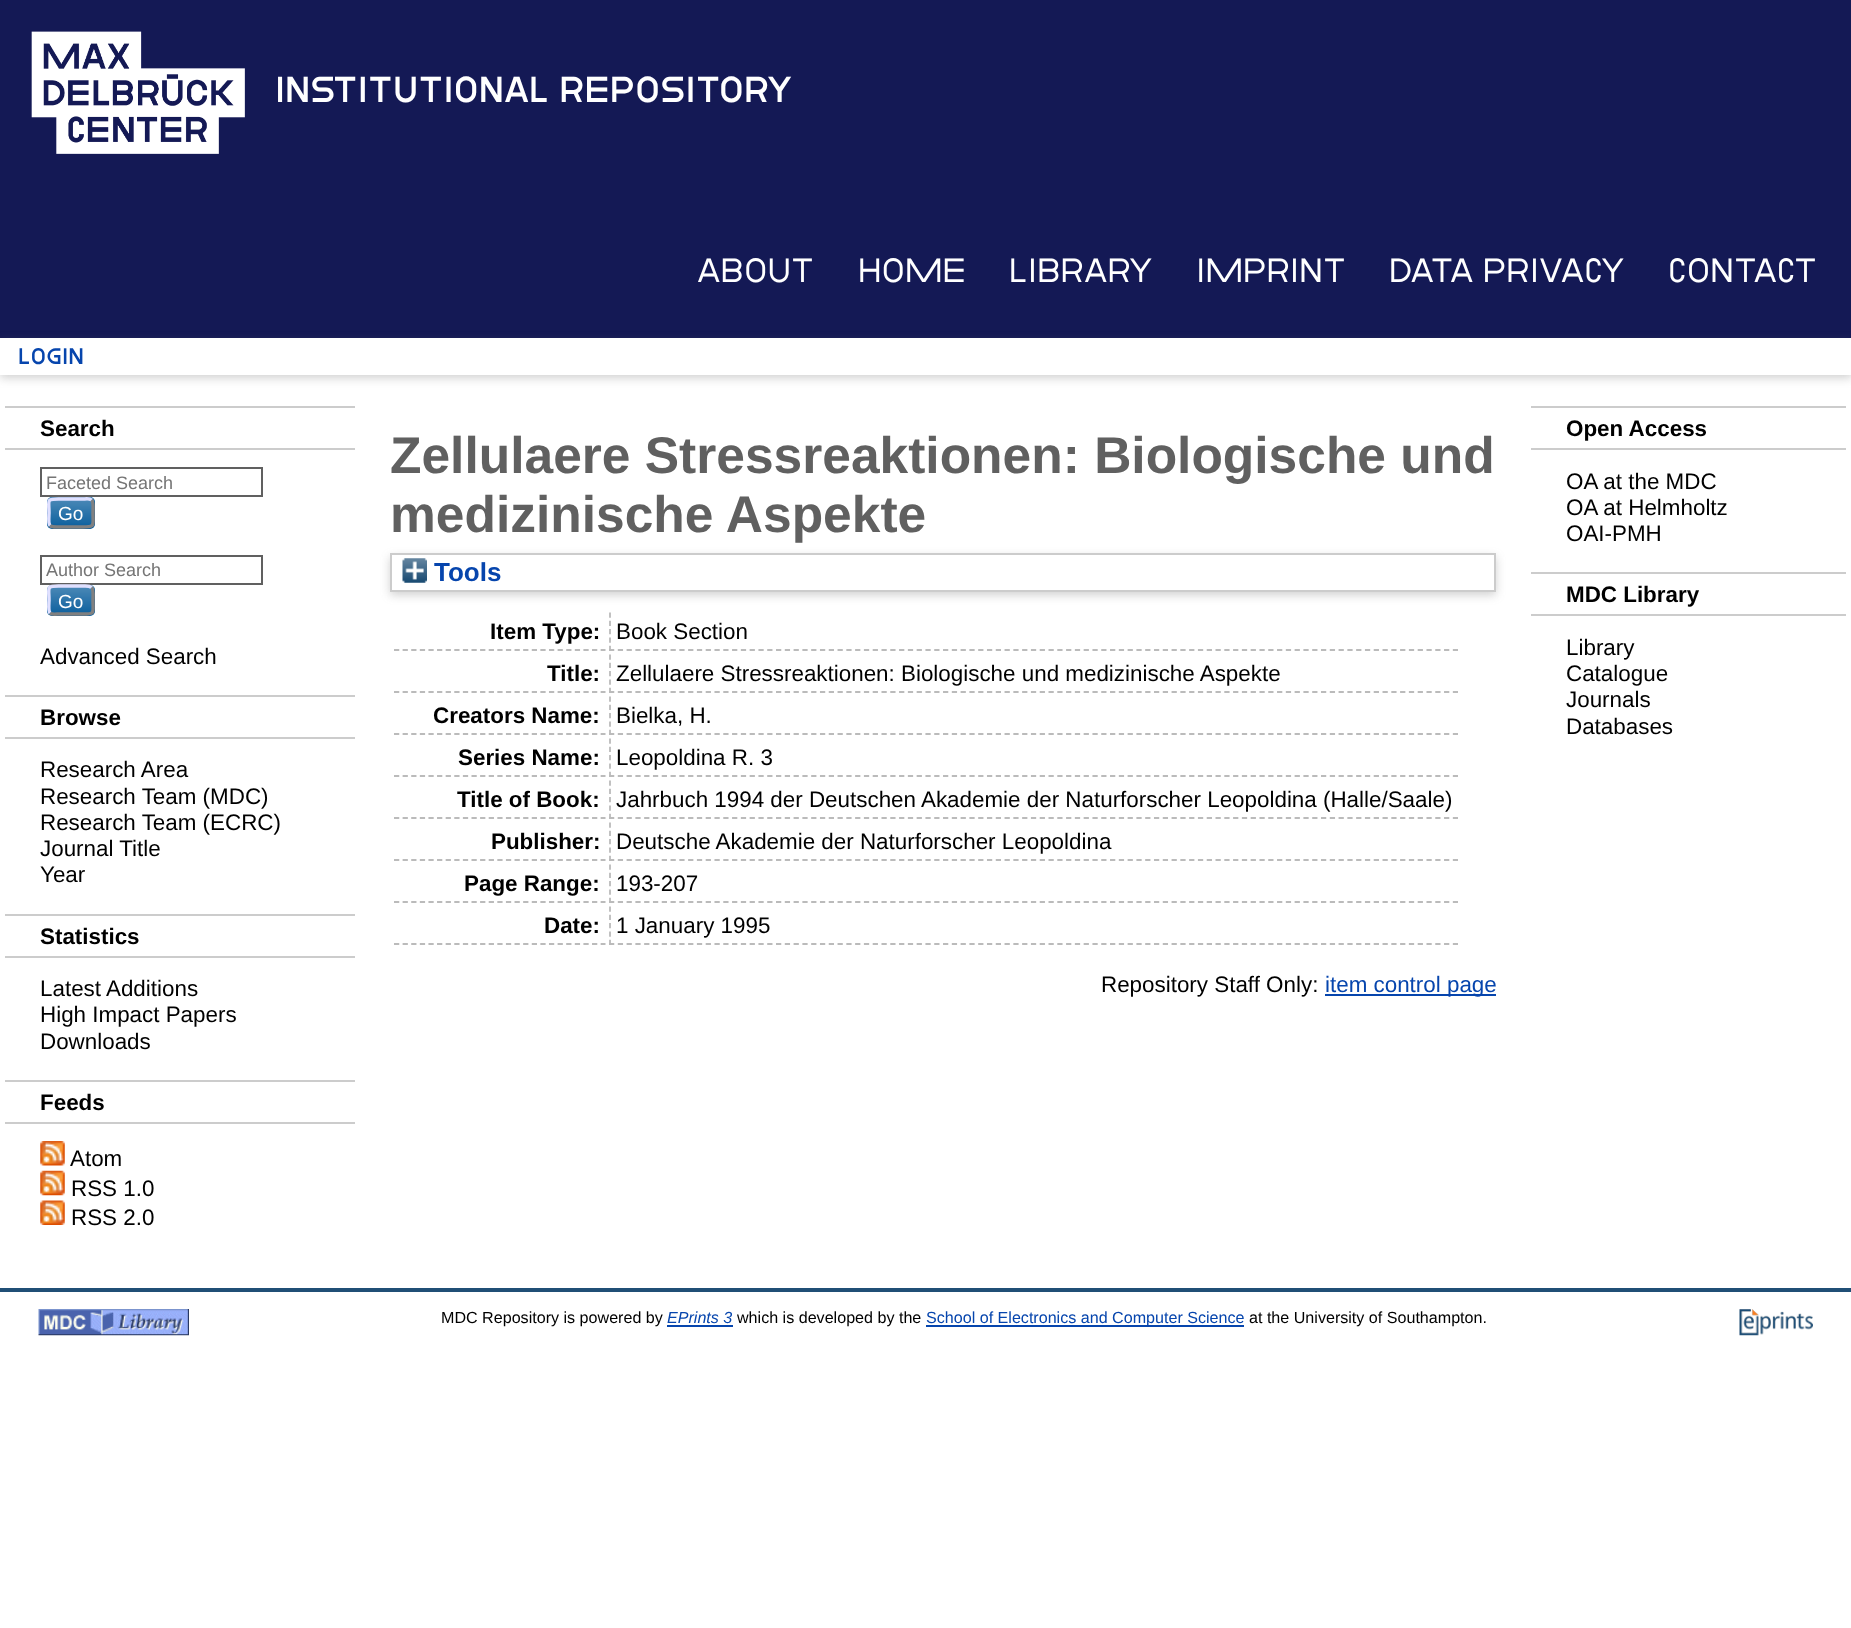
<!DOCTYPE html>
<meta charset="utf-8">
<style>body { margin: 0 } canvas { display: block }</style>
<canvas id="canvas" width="1851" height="1628"></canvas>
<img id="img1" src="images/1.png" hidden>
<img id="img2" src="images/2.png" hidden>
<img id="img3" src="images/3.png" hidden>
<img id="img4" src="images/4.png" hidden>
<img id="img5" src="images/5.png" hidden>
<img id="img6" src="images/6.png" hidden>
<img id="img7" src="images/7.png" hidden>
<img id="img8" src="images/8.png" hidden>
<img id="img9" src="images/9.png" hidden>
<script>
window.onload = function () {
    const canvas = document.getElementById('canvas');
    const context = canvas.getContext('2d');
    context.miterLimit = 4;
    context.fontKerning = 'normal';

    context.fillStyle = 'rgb(255, 255, 255)';
    context.fillRect(0, 0, 1851, 1628);
    context.fillStyle = 'rgb(20, 25, 85)';
    context.fillRect(0, 0, 1851, 338);
    context.drawImage(document.getElementById('img1'), 31, 31, 214, 123);
    context.fillStyle = 'rgba(100, 100, 100, 0.3)';
    context.filter = 'blur(5px)';
    context.beginPath();
    context.rect(0, 341, 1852, 37);
    context.fill();
    context.filter = 'none';
    context.fillStyle = 'rgb(255, 255, 255)';
    context.fillRect(0, 338, 1851, 37);
    context.fillStyle = 'rgb(204, 204, 204)';
    context.fillRect(5, 406, 350, 2);
    context.fillRect(5, 448, 350, 2);
    context.strokeStyle = 'rgb(96, 96, 96)';
    context.lineWidth = 2;
    context.strokeRect(41, 468, 221, 28);
    context.fillStyle = 'rgb(0, 88, 153)';
    context.beginPath();
    context.roundRect(47, 497, 48, 32, 5);
    context.fill();
    context.drawImage(document.getElementById('img2'), 47, 497, 48, 31);
    context.beginPath();
    context.moveTo(91.5, 500);
    context.bezierCurveTo(94, 502, 93, 510, 93, 513);
    context.bezierCurveTo(93, 525.5, 95.5, 527, 83, 527);
    context.lineTo(58.5, 527);
    context.bezierCurveTo(57, 527, 52, 527.5, 50, 525.5);
    context.strokeStyle = 'rgb(128, 128, 128)';
    context.lineWidth = 3.5;
    context.stroke();
    context.beginPath();
    context.moveTo(50, 525.5);
    context.bezierCurveTo(48, 523.5, 49, 515.5, 49, 513);
    context.bezierCurveTo(49, 500, 46, 499, 58.5, 499);
    context.lineTo(83, 499);
    context.bezierCurveTo(85, 499, 89.5, 498, 91.5, 500);
    context.strokeStyle = 'rgb(224, 224, 255)';
    context.stroke();
    context.strokeStyle = 'rgb(96, 96, 96)';
    context.lineWidth = 2;
    context.strokeRect(41, 556, 221, 28);
    context.beginPath();
    context.roundRect(47, 585, 48, 31, 5);
    context.fill();
    context.drawImage(document.getElementById('img3'), 47, 584, 48, 32);
    context.beginPath();
    context.moveTo(91.5, 587.5);
    context.bezierCurveTo(94, 589.5, 93, 597.5, 93, 600);
    context.bezierCurveTo(93, 613, 95.5, 614, 83, 614);
    context.lineTo(58.5, 614);
    context.bezierCurveTo(57, 614, 52, 615, 50, 613);
    context.strokeStyle = 'rgb(128, 128, 128)';
    context.lineWidth = 3.5;
    context.stroke();
    context.beginPath();
    context.moveTo(50, 613);
    context.bezierCurveTo(48, 611, 49, 603, 49, 600);
    context.bezierCurveTo(49, 587.5, 46, 586, 58.5, 586);
    context.lineTo(83, 586);
    context.bezierCurveTo(85, 586, 89.5, 585.5, 91.5, 587.5);
    context.strokeStyle = 'rgb(224, 224, 255)';
    context.stroke();
    context.fillStyle = 'rgb(204, 204, 204)';
    context.fillRect(5, 695, 350, 2);
    context.fillRect(5, 737, 350, 2);
    context.fillRect(5, 914, 350, 2);
    context.fillRect(5, 956, 350, 2);
    context.fillRect(5, 1080, 350, 2);
    context.fillRect(5, 1122, 350, 2);
    context.drawImage(document.getElementById('img4'), 40, 1141, 25, 25);
    context.drawImage(document.getElementById('img5'), 40, 1170, 25, 26);
    context.drawImage(document.getElementById('img6'), 40, 1200, 25, 25);
    context.fillStyle = 'rgba(100, 100, 100, 0.3)';
    context.filter = 'blur(5px)';
    context.beginPath();
    context.rect(390, 557, 1106, 38);
    context.fill();
    context.filter = 'none';
    context.fillStyle = 'rgb(255, 255, 255)';
    context.beginPath();
    context.rect(391, 554, 1104, 37);
    context.fill();
    context.strokeStyle = 'rgb(204, 204, 204)';
    context.lineWidth = 2;
    context.stroke();
    context.drawImage(document.getElementById('img7'), 402, 558, 25, 25);
    context.beginPath();
    context.moveTo(394, 650);
    context.lineTo(605.5, 650);
    context.strokeStyle = 'rgb(187, 187, 187)';
    context.lineWidth = 1.8;
    context.setLineDash([5.25, 3.36]);
    context.stroke();
    context.beginPath();
    context.moveTo(609, 650);
    context.lineTo(1458, 650);
    context.setLineDash([5.25, 3.54]);
    context.stroke();
    context.beginPath();
    context.moveTo(610, 612.5);
    context.lineTo(610, 651);
    context.setLineDash([5.25, 3.06]);
    context.stroke();
    context.beginPath();
    context.moveTo(394, 692);
    context.lineTo(605.5, 692);
    context.setLineDash([5.25, 3.36]);
    context.stroke();
    context.beginPath();
    context.moveTo(609, 692);
    context.lineTo(1458, 692);
    context.setLineDash([5.25, 3.54]);
    context.stroke();
    context.beginPath();
    context.moveTo(610, 654.5);
    context.lineTo(610, 693);
    context.setLineDash([5.25, 3.06]);
    context.stroke();
    context.beginPath();
    context.moveTo(394, 734);
    context.lineTo(605.5, 734);
    context.setLineDash([5.25, 3.36]);
    context.stroke();
    context.beginPath();
    context.moveTo(609, 734);
    context.lineTo(1458, 734);
    context.setLineDash([5.25, 3.54]);
    context.stroke();
    context.beginPath();
    context.moveTo(610, 696.5);
    context.lineTo(610, 735);
    context.setLineDash([5.25, 3.06]);
    context.stroke();
    context.beginPath();
    context.moveTo(394, 776);
    context.lineTo(605.5, 776);
    context.setLineDash([5.25, 3.36]);
    context.stroke();
    context.beginPath();
    context.moveTo(609, 776);
    context.lineTo(1458, 776);
    context.setLineDash([5.25, 3.54]);
    context.stroke();
    context.beginPath();
    context.moveTo(610, 738.5);
    context.lineTo(610, 777);
    context.setLineDash([5.25, 3.06]);
    context.stroke();
    context.beginPath();
    context.moveTo(394, 818);
    context.lineTo(605.5, 818);
    context.setLineDash([5.25, 3.36]);
    context.stroke();
    context.beginPath();
    context.moveTo(609, 818);
    context.lineTo(1458, 818);
    context.setLineDash([5.25, 3.54]);
    context.stroke();
    context.beginPath();
    context.moveTo(610, 780.5);
    context.lineTo(610, 819);
    context.setLineDash([5.25, 3.06]);
    context.stroke();
    context.beginPath();
    context.moveTo(394, 860);
    context.lineTo(605.5, 860);
    context.setLineDash([5.25, 3.36]);
    context.stroke();
    context.beginPath();
    context.moveTo(609, 860);
    context.lineTo(1458, 860);
    context.setLineDash([5.25, 3.54]);
    context.stroke();
    context.beginPath();
    context.moveTo(610, 822.5);
    context.lineTo(610, 861);
    context.setLineDash([5.25, 3.06]);
    context.stroke();
    context.beginPath();
    context.moveTo(394, 902);
    context.lineTo(605.5, 902);
    context.setLineDash([5.25, 3.36]);
    context.stroke();
    context.beginPath();
    context.moveTo(609, 902);
    context.lineTo(1458, 902);
    context.setLineDash([5.25, 3.54]);
    context.stroke();
    context.beginPath();
    context.moveTo(610, 864.5);
    context.lineTo(610, 903);
    context.setLineDash([5.25, 3.06]);
    context.stroke();
    context.beginPath();
    context.moveTo(394, 944);
    context.lineTo(605.5, 944);
    context.setLineDash([5.25, 3.36]);
    context.stroke();
    context.beginPath();
    context.moveTo(609, 944);
    context.lineTo(1458, 944);
    context.setLineDash([5.25, 3.54]);
    context.stroke();
    context.beginPath();
    context.moveTo(610, 906.5);
    context.lineTo(610, 945);
    context.setLineDash([5.25, 3.06]);
    context.stroke();
    context.fillStyle = 'rgb(6, 69, 173)';
    context.fillRect(1325, 994, 171, 2);
    context.fillStyle = 'rgb(204, 204, 204)';
    context.fillRect(1531, 406, 315, 2);
    context.fillRect(1531, 448, 315, 2);
    context.fillRect(1531, 572, 315, 2);
    context.fillRect(1531, 614, 315, 2);
    context.fillStyle = 'rgb(32, 79, 118)';
    context.fillRect(0, 1288, 1851, 4);
    context.drawImage(document.getElementById('img8'), 38, 1309, 151, 27);
    context.fillStyle = 'rgb(6, 69, 173)';
    context.fillRect(667, 1325, 66, 2);
    context.fillRect(926, 1325, 318, 2);
    context.drawImage(document.getElementById('img9'), 1739, 1309, 74, 27);
    context.font = 'bold 36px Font';
    context.fillStyle = 'rgb(255, 255, 255)';
    context.fillText('Institutional Repository', 275, 102);
    context.font = '500 33.5px Font';
    context.fillText('About', 697, 282);
    context.fillText('Home', 858, 282);
    context.fillText('Library', 1009, 282);
    context.fillText('Imprint', 1196, 282);
    context.fillText('Data Privacy', 1389, 282);
    context.fillText('Contact', 1668, 282);
    context.font = 'bold 22.4px Font';
    context.fillStyle = 'rgb(6, 69, 173)';
    context.fillText('Login', 18, 364);
    context.font = 'bold 22.4px Liberation Sans';
    context.fillStyle = 'rgb(0, 0, 0)';
    context.fillText('Search', 40, 436);
    context.font = '18px Liberation Sans';
    context.fillStyle = 'rgb(117, 117, 117)';
    context.fillText('Faceted Search', 46, 489);
    context.font = '19px Liberation Sans';
    context.fillStyle = 'rgb(255, 255, 255)';
    context.fillText('Go', 58, 520);
    context.font = '18px Liberation Sans';
    context.fillStyle = 'rgb(117, 117, 117)';
    context.fillText('Author Search', 46, 576);
    context.font = '19px Liberation Sans';
    context.fillStyle = 'rgb(255, 255, 255)';
    context.fillText('Go', 58, 608);
    context.font = '22.4px Liberation Sans';
    context.fillStyle = 'rgb(0, 0, 0)';
    context.fillText('Advanced Search', 40, 664);
    context.font = 'bold 22.4px Liberation Sans';
    context.fillText('Browse', 40, 725);
    context.font = '22.4px Liberation Sans';
    context.fillText('Research Area', 40, 777);
    context.fillText('Research Team (MDC)', 40, 804);
    context.fillText('Research Team (ECRC)', 40, 830);
    context.fillText('Journal Title', 40, 856);
    context.fillText('Year', 40, 882);
    context.font = 'bold 22.4px Liberation Sans';
    context.fillText('Statistics', 40, 944);
    context.font = '22.4px Liberation Sans';
    context.fillText('Latest Additions', 40, 996);
    context.fillText('High Impact Papers', 40, 1022);
    context.fillText('Downloads', 40, 1049);
    context.font = 'bold 22.4px Liberation Sans';
    context.fillText('Feeds', 40, 1110);
    context.font = '22.4px Liberation Sans';
    context.fillText('Atom', 70, 1166);
    context.fillText('RSS 1.0', 71, 1196);
    context.fillText('RSS 2.0', 71, 1225);
    context.font = 'bold 51.5px Liberation Sans';
    context.fillStyle = 'rgb(96, 96, 96)';
    context.fillText('Zellulaere Stressreaktionen: Biologische und', 390, 473);
    context.fillText('medizinische Aspekte', 390, 532);
    context.font = 'bold 26px Liberation Sans';
    context.fillStyle = 'rgb(6, 69, 173)';
    context.fillText('Tools', 434, 581);
    context.font = 'bold 22.4px Liberation Sans';
    context.fillStyle = 'rgb(0, 0, 0)';
    context.fillText('Item Type:', 490, 639);
    context.font = '22.4px Liberation Sans';
    context.fillText('Book Section', 616, 639);
    context.font = 'bold 22.4px Liberation Sans';
    context.fillText('Title:', 547, 681);
    context.font = '22.4px Liberation Sans';
    context.fillText('Zellulaere Stressreaktionen: Biologische und medizinische Aspekte', 616, 681);
    context.font = 'bold 22.4px Liberation Sans';
    context.fillText('Creators Name:', 433, 723);
    context.font = '22.4px Liberation Sans';
    context.fillText('Bielka, H.', 616, 723);
    context.font = 'bold 22.4px Liberation Sans';
    context.fillText('Series Name:', 458, 765);
    context.font = '22.4px Liberation Sans';
    context.fillText('Leopoldina R. 3', 616, 765);
    context.font = 'bold 22.4px Liberation Sans';
    context.fillText('Title of Book:', 457, 807);
    context.font = '22.4px Liberation Sans';
    context.fillText('Jahrbuch 1994 der Deutschen Akademie der Naturforscher Leopoldina (Halle/Saale)', 616, 807);
    context.font = 'bold 22.4px Liberation Sans';
    context.fillText('Publisher:', 491, 849);
    context.font = '22.4px Liberation Sans';
    context.fillText('Deutsche Akademie der Naturforscher Leopoldina', 616, 849);
    context.font = 'bold 22.4px Liberation Sans';
    context.fillText('Page Range:', 464, 891);
    context.font = '22.4px Liberation Sans';
    context.fillText('193-207', 616, 891);
    context.font = 'bold 22.4px Liberation Sans';
    context.fillText('Date:', 544, 933);
    context.font = '22.4px Liberation Sans';
    context.fillText('1 January 1995', 616, 933);
    context.fillText('Repository Staff Only:', 1101, 992);
    context.fillStyle = 'rgb(6, 69, 173)';
    context.fillText('item control page', 1325, 992);
    context.font = 'bold 22.4px Liberation Sans';
    context.fillStyle = 'rgb(0, 0, 0)';
    context.fillText('Open Access', 1566, 436);
    context.font = '22.4px Liberation Sans';
    context.fillText('OA at the MDC', 1566, 489);
    context.fillText('OA at Helmholtz', 1566, 515);
    context.fillText('OAI-PMH', 1566, 541);
    context.font = 'bold 22.4px Liberation Sans';
    context.fillText('MDC Library', 1566, 602);
    context.font = '22.4px Liberation Sans';
    context.fillText('Library', 1566, 655);
    context.fillText('Catalogue', 1566, 681);
    context.fillText('Journals', 1566, 707);
    context.fillText('Databases', 1566, 734);
    context.font = '16.1px Liberation Sans';
    context.fillText('MDC Repository is powered by', 441, 1323);
    context.font = 'italic 16.1px Liberation Sans';
    context.fillStyle = 'rgb(6, 69, 173)';
    context.fillText('EPrints 3', 667, 1323);
    context.font = '16.1px Liberation Sans';
    context.fillStyle = 'rgb(0, 0, 0)';
    context.fillText('which is developed by the', 737, 1323);
    context.fillStyle = 'rgb(6, 69, 173)';
    context.fillText('School of Electronics and Computer Science', 926, 1323);
    context.fillStyle = 'rgb(0, 0, 0)';
    context.fillText('at the University of Southampton.', 1249, 1323);
};
</script>
